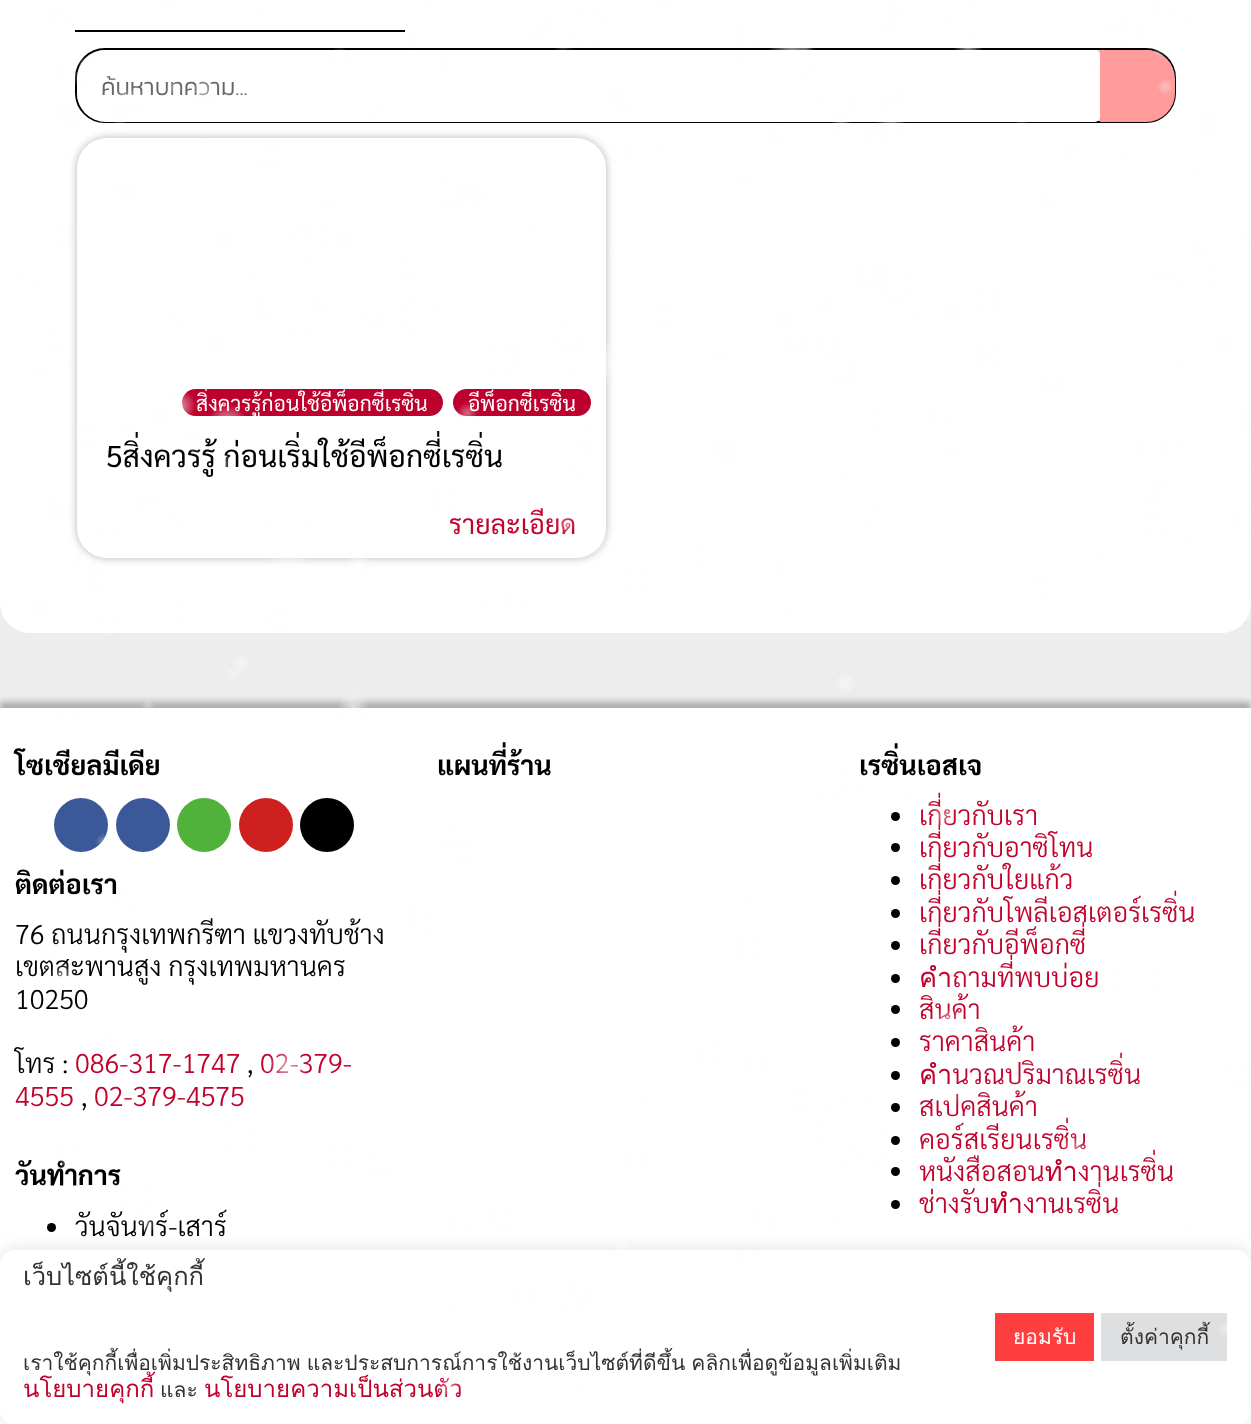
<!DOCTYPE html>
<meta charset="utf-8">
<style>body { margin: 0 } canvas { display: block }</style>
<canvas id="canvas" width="1251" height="1424"></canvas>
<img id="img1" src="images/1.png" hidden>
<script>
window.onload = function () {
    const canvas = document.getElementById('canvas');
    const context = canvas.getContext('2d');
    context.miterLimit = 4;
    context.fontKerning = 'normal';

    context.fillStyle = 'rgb(237, 237, 237)';
    context.fillRect(0, 0, 1251, 1424);
    context.fillStyle = 'rgb(255, 255, 255)';
    context.beginPath();
    context.roundRect(0, -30, 1251, 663, 30);
    context.fill();
    context.fillStyle = 'rgb(0, 0, 0)';
    context.fillRect(75, 30, 330, 2);
    context.fillStyle = 'rgb(210, 210, 210)';
    context.beginPath();
    context.roundRect(76, 49, 1099, 73, 29);
    context.fill();
    context.strokeStyle = 'rgb(0, 0, 0)';
    context.lineWidth = 2;
    context.stroke();
    context.fillStyle = 'rgb(255, 255, 255)';
    context.beginPath();
    context.roundRect(77, 50, 1023, 72, [29, 5, 5, 29]);
    context.fill();
    context.fillStyle = 'rgb(255, 155, 155)';
    context.beginPath();
    context.roundRect(1100, 50, 75, 72, [0, 29, 29, 0]);
    context.fill();
    context.fillStyle = 'rgba(0, 0, 0, 0.29)';
    context.filter = 'blur(4.5px)';
    context.beginPath();
    context.roundRect(77, 138, 529, 420, 30);
    context.fill();
    context.filter = 'none';
    context.fillStyle = 'rgb(255, 255, 255)';
    context.beginPath();
    context.roundRect(77, 138, 529, 420, 30);
    context.fill();
    context.fillStyle = 'rgb(189, 1, 46)';
    context.beginPath();
    context.roundRect(182, 389, 261, 27, 13.5);
    context.fill();
    context.beginPath();
    context.roundRect(453, 389, 138, 27, 13.5);
    context.fill();
    context.fillStyle = 'rgba(0, 0, 0, 0.28)';
    context.filter = 'blur(3px)';
    context.beginPath();
    context.rect(0, 702, 1251, 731);
    context.fill();
    context.filter = 'none';
    context.fillStyle = 'rgb(255, 255, 255)';
    context.fillRect(0, 708, 1251, 716);
    context.fillStyle = 'rgb(59, 89, 152)';
    context.beginPath();
    context.arc(81, 825, 27, 0, 2 * Math.PI);
    context.fill();
    context.beginPath();
    context.arc(143, 825, 27, 0, 2 * Math.PI);
    context.fill();
    context.fillStyle = 'rgb(80, 177, 59)';
    context.beginPath();
    context.arc(204, 825, 27, 0, 2 * Math.PI);
    context.fill();
    context.fillStyle = 'rgb(205, 32, 31)';
    context.beginPath();
    context.arc(266, 825, 27, 0, 2 * Math.PI);
    context.fill();
    context.fillStyle = 'rgb(0, 0, 0)';
    context.beginPath();
    context.arc(327, 825, 27, 0, 2 * Math.PI);
    context.fill();
    context.beginPath();
    context.arc(51.5, 1227.5, 4.5, 0, 2 * Math.PI);
    context.fill();
    context.beginPath();
    context.arc(895.5, 816.5, 4.5, 0, 2 * Math.PI);
    context.fill();
    context.beginPath();
    context.arc(895.5, 847.5, 4.5, 0, 2 * Math.PI);
    context.fill();
    context.beginPath();
    context.arc(895.5, 880.5, 4.5, 0, 2 * Math.PI);
    context.fill();
    context.beginPath();
    context.arc(895.5, 913.5, 4.5, 0, 2 * Math.PI);
    context.fill();
    context.beginPath();
    context.arc(895.5, 945.5, 4.5, 0, 2 * Math.PI);
    context.fill();
    context.beginPath();
    context.arc(895.5, 978.5, 4.5, 0, 2 * Math.PI);
    context.fill();
    context.beginPath();
    context.arc(895.5, 1009.5, 4.5, 0, 2 * Math.PI);
    context.fill();
    context.beginPath();
    context.arc(895.5, 1042.5, 4.5, 0, 2 * Math.PI);
    context.fill();
    context.beginPath();
    context.arc(895.5, 1075.5, 4.5, 0, 2 * Math.PI);
    context.fill();
    context.beginPath();
    context.arc(895.5, 1107.5, 4.5, 0, 2 * Math.PI);
    context.fill();
    context.beginPath();
    context.arc(895.5, 1140.5, 4.5, 0, 2 * Math.PI);
    context.fill();
    context.beginPath();
    context.arc(895.5, 1171.5, 4.5, 0, 2 * Math.PI);
    context.fill();
    context.beginPath();
    context.arc(895.5, 1204.5, 4.5, 0, 2 * Math.PI);
    context.fill();
    context.fillStyle = 'rgba(172, 171, 171, 0.3)';
    context.filter = 'blur(7.5px)';
    context.beginPath();
    context.roundRect(0, 1248, 1251, 176, 15);
    context.fill();
    context.filter = 'none';
    context.fillStyle = 'rgb(255, 255, 255)';
    context.beginPath();
    context.roundRect(0, 1250, 1251, 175, 15);
    context.fill();
    context.fillStyle = 'rgb(255, 63, 63)';
    context.fillRect(995, 1313, 99, 48);
    context.fillStyle = 'rgb(222, 223, 224)';
    context.fillRect(1101, 1313, 126, 48);
    context.save();
    context.beginPath();
    context.rect(102, 68, 950, 36);
    context.clip();
    context.font = '300 24px Kanit';
    context.fillStyle = 'rgb(107, 102, 102)';
    context.fillText('ค้นหาบทความ...', 101, 95);
    context.restore();
    context.save();
    context.beginPath();
    context.rect(77, 387, 529, 30);
    context.clip();
    context.font = '21px Sarabun';
    context.fillStyle = 'rgb(255, 255, 255)';
    context.fillText('สิ่งควรรู้ก่อนใช้อีพ็อกซี่เรซิ่น', 196, 411);
    context.fillText('อีพ็อกซี่เรซิ่น', 468, 411);
    context.restore();
    context.font = '30px Sarabun';
    context.fillStyle = 'rgb(0, 0, 0)';
    context.fillText('5สิ่งควรรู้ ก่อนเริ่มใช้อีพ็อกซี่เรซิ่น', 106, 467);
    context.font = '27px Sarabun';
    context.fillStyle = 'rgb(192, 2, 44)';
    context.fillText('รายละเอียด', 449, 534);
    context.font = 'bold 27px Sarabun';
    context.fillStyle = 'rgb(0, 0, 0)';
    context.fillText('โซเชียลมีเดีย', 15, 775);
    context.fillText('ติดต่อเรา', 15, 894);
    context.font = '300 27px Sarabun';
    context.fillText('76 ถนนกรุงเทพกรีฑา แขวงทับช้าง', 15, 944);
    context.fillText('เขตสะพานสูง กรุงเทพมหานคร', 15, 976);
    context.fillText('10250', 15, 1009);
    context.fillText('โทร :', 15, 1073);
    context.fillStyle = 'rgb(192, 2, 44)';
    context.fillText('086-317-1747', 75, 1073);
    context.fillStyle = 'rgb(0, 0, 0)';
    context.fillText(',', 247, 1073);
    context.fillStyle = 'rgb(192, 2, 44)';
    context.fillText('02-379-', 260, 1073);
    context.fillText('4555', 15, 1106);
    context.fillStyle = 'rgb(0, 0, 0)';
    context.fillText(',', 81, 1106);
    context.fillStyle = 'rgb(192, 2, 44)';
    context.fillText('02-379-4575', 94, 1106);
    context.font = 'bold 27px Sarabun';
    context.fillStyle = 'rgb(0, 0, 0)';
    context.fillText('วันทำการ', 15, 1185);
    context.font = '300 27px Sarabun';
    context.fillText('วันจันทร์-เสาร์', 75, 1236);
    context.font = 'bold 27px Sarabun';
    context.fillText('แผนที่ร้าน', 437, 775);
    context.fillText('เรซิ่นเอสเจ', 859, 775);
    context.font = '300 27px Sarabun';
    context.fillStyle = 'rgb(192, 2, 44)';
    context.fillText('เกี่ยวกับเรา', 919, 825);
    context.fillText('เกี่ยวกับอาซิโทน', 919, 857);
    context.fillText('เกี่ยวกับใยแก้ว', 919, 889);
    context.fillText('เกี่ยวกับโพลีเอสเตอร์เรซิ่น', 919, 922);
    context.fillText('เกี่ยวกับอีพ็อกซี่', 919, 954);
    context.fillText('คำถามที่พบบ่อย', 919, 987);
    context.fillText('สินค้า', 919, 1019);
    context.fillText('ราคาสินค้า', 919, 1051);
    context.fillText('คำนวณปริมาณเรซิ่น', 919, 1084);
    context.fillText('สเปคสินค้า', 919, 1116);
    context.fillText('คอร์สเรียนเรซิ่น', 919, 1149);
    context.fillText('หนังสือสอนทำงานเรซิ่น', 919, 1181);
    context.fillText('ช่างรับทำงานเรซิ่น', 919, 1213);
    context.font = '25.5px Loma';
    context.fillStyle = 'rgb(51, 51, 51)';
    context.fillText('เว็บไซต์นี้ใช้คุกกี้', 23, 1285);
    context.wordSpacing = '-1px';
    context.font = '21px Loma';
    context.fillText('เราใช้คุกกี้เพื่อเพิ่มประสิทธิภาพ และประสบการณ์การใช้งานเว็บไซต์ที่ดีขึ้น คลิกเพื่อดูข้อมูลเพิ่มเติม', 23, 1370);
    context.wordSpacing = '0px';
    context.font = '24px Loma';
    context.fillStyle = 'rgb(192, 2, 44)';
    context.fillText('นโยบายคุกกี้', 23, 1397);
    context.font = '21px Loma';
    context.fillStyle = 'rgb(51, 51, 51)';
    context.fillText('และ', 160, 1397);
    context.font = '24px Loma';
    context.fillStyle = 'rgb(192, 2, 44)';
    context.fillText('นโยบายความเป็นส่วนตัว', 204, 1397);
    context.font = '21px Loma';
    context.fillStyle = 'rgb(255, 255, 255)';
    context.fillText('ยอมรับ', 1013, 1344);
    context.fillStyle = 'rgb(51, 51, 51)';
    context.fillText('ตั้งค่าคุกกี้', 1120, 1344);
    context.drawImage(document.getElementById('img1'), 18, 0, 1233, 1397);
};
</script>
